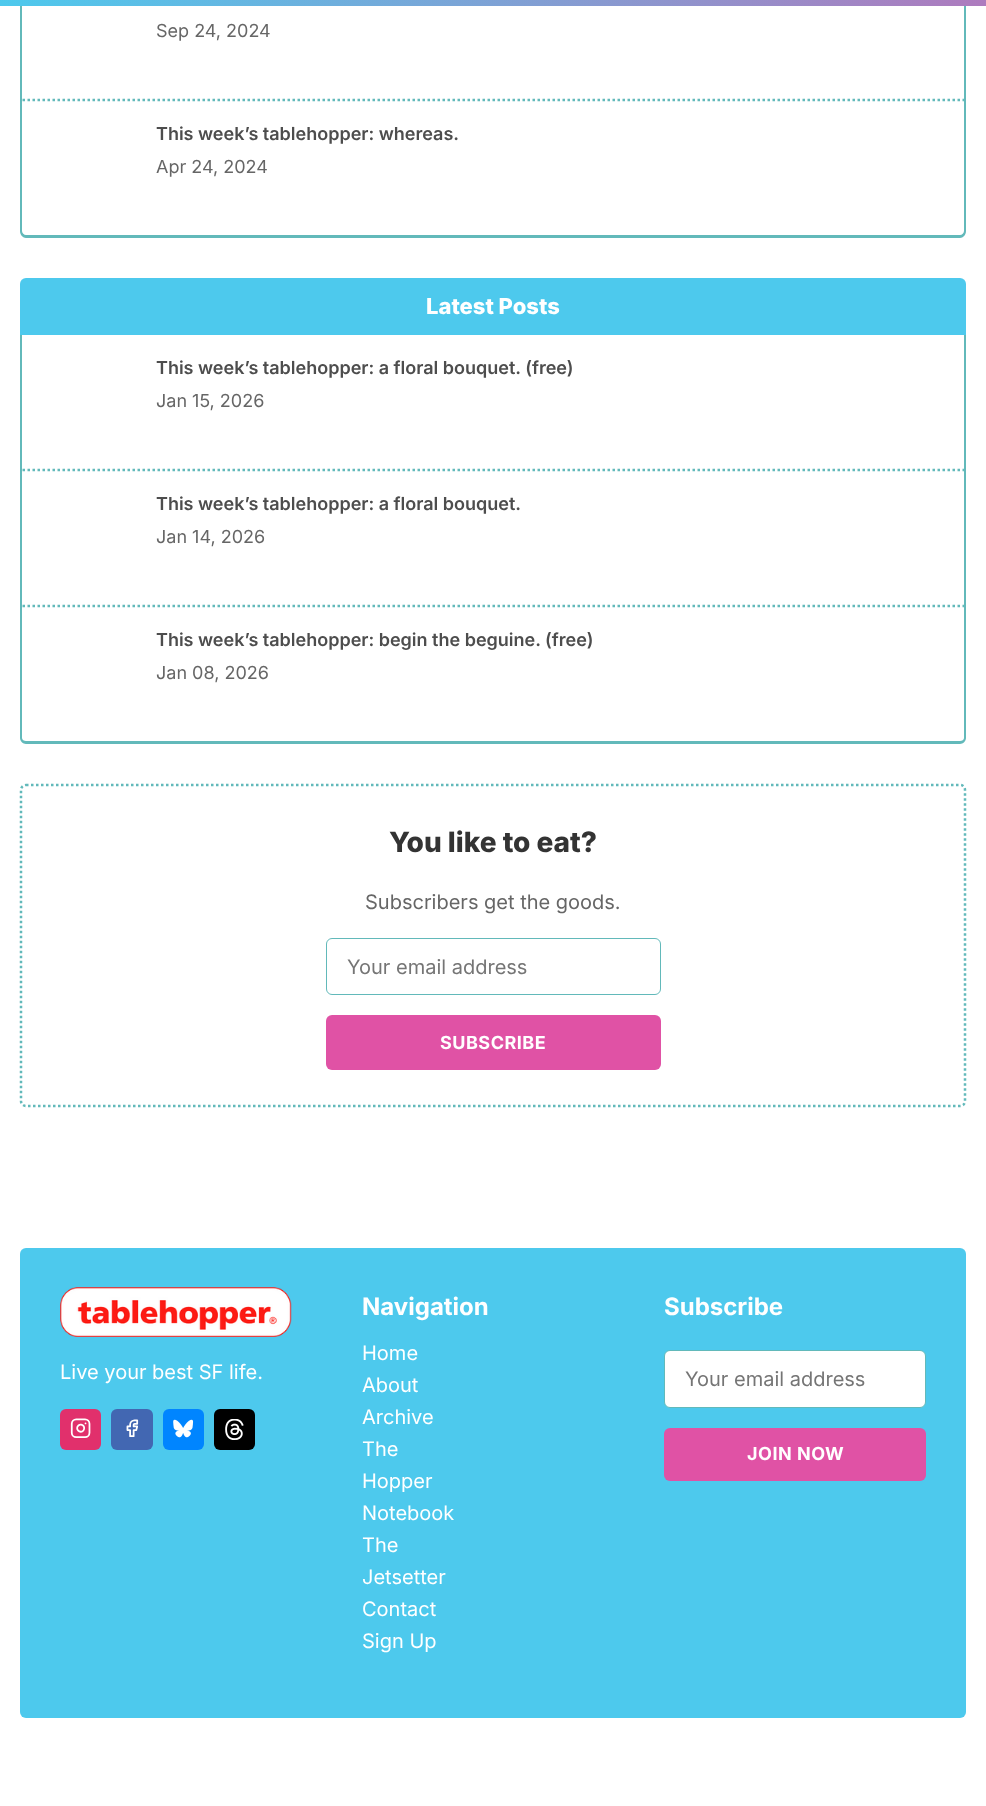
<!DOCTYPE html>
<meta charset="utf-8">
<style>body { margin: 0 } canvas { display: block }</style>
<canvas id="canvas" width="986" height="1806"></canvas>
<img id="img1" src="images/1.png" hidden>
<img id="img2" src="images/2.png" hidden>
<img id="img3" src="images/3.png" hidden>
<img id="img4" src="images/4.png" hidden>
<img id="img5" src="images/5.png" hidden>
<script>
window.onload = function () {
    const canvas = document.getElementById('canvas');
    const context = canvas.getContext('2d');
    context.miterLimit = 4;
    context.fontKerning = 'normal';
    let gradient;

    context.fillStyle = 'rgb(255, 255, 255)';
    context.fillRect(0, 0, 986, 1806);
    context.fillStyle = 'rgb(98, 185, 186)';
    context.beginPath();
    context.moveTo(20, -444);
    context.lineTo(966, -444);
    context.lineTo(966, 231);
    context.bezierCurveTo(966, 235, 963, 238, 960, 238);
    context.lineTo(26, 238);
    context.bezierCurveTo(23, 238, 20, 235, 20, 231);
    context.closePath();
    context.moveTo(22, -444);
    context.lineTo(964, -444);
    context.lineTo(964, 231);
    context.bezierCurveTo(964, 233, 962, 235, 960, 235);
    context.lineTo(26, 235);
    context.bezierCurveTo(24, 235, 22, 233, 22, 231);
    context.closePath();
    context.fill('evenodd');
    gradient = context.createLinearGradient(0, 3.1, 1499, 3.1);
    gradient.addColorStop(0, 'rgb(77, 201, 237)');
    gradient.addColorStop(1, 'rgb(224, 82, 165)');
    context.fillStyle = gradient;
    context.fillRect(0, 0, 986, 6);
    context.beginPath();
    context.moveTo(22.5, 100);
    context.lineTo(964, 100);
    context.strokeStyle = 'rgb(98, 185, 186)';
    context.lineWidth = 2.5;
    context.setLineDash([2.5, 2.5]);
    context.stroke();
    context.fillStyle = 'rgb(77, 201, 237)';
    context.beginPath();
    context.roundRect(20, 278, 946, 57, [6, 6, 0, 0]);
    context.fill();
    context.fillStyle = 'rgb(98, 185, 186)';
    context.beginPath();
    context.moveTo(20, 335);
    context.lineTo(966, 335);
    context.lineTo(966, 738);
    context.bezierCurveTo(966, 741, 963, 744, 960, 744);
    context.lineTo(26, 744);
    context.bezierCurveTo(23, 744, 20, 741, 20, 738);
    context.closePath();
    context.moveTo(22, 335);
    context.lineTo(964, 335);
    context.lineTo(964, 738);
    context.bezierCurveTo(964, 740, 962, 741, 960, 741);
    context.lineTo(26, 741);
    context.bezierCurveTo(24, 741, 22, 740, 22, 738);
    context.closePath();
    context.fill('evenodd');
    context.beginPath();
    context.moveTo(22.5, 470);
    context.lineTo(964, 470);
    context.stroke();
    context.beginPath();
    context.moveTo(22.5, 606);
    context.lineTo(964, 606);
    context.stroke();
    context.beginPath();
    context.moveTo(26, 785);
    context.lineTo(960, 785);
    context.bezierCurveTo(963, 785, 965, 787, 965, 790);
    context.lineTo(965, 1101);
    context.bezierCurveTo(965, 1104, 963, 1106, 960, 1106);
    context.lineTo(26, 1106);
    context.bezierCurveTo(23.5, 1106, 21, 1104, 21, 1101);
    context.lineTo(21, 790);
    context.bezierCurveTo(21, 787, 23.5, 785, 26, 785);
    context.closePath();
    context.stroke();
    context.beginPath();
    context.roundRect(326.5, 938.5, 334, 56, 5.5);
    context.lineWidth = 1;
    context.setLineDash([]);
    context.stroke();
    context.fillStyle = 'rgb(224, 82, 165)';
    context.beginPath();
    context.roundRect(326, 1015, 335, 55, 6);
    context.fill();
    context.fillStyle = 'rgb(77, 201, 237)';
    context.beginPath();
    context.roundRect(20, 1248, 946, 470, 6);
    context.fill();
    context.drawImage(document.getElementById('img1'), 60, 1287, 232, 50);
    context.fillStyle = 'rgb(225, 48, 108)';
    context.beginPath();
    context.roundRect(60, 1409, 41, 41, 6);
    context.fill();
    context.drawImage(document.getElementById('img2'), 70, 1418, 21, 20);
    context.fillStyle = 'rgb(66, 103, 178)';
    context.beginPath();
    context.roundRect(111, 1409, 42, 41, 6);
    context.fill();
    context.drawImage(document.getElementById('img3'), 126, 1419, 13, 18);
    context.fillStyle = 'rgb(0, 133, 255)';
    context.beginPath();
    context.roundRect(163, 1409, 41, 41, 6);
    context.fill();
    context.drawImage(document.getElementById('img4'), 173, 1419, 21, 19);
    context.fillStyle = 'rgb(0, 0, 0)';
    context.beginPath();
    context.roundRect(214, 1409, 41, 41, 6);
    context.fill();
    context.drawImage(document.getElementById('img5'), 225, 1419, 19, 21);
    context.fillStyle = 'rgb(255, 255, 255)';
    context.beginPath();
    context.roundRect(664.5, 1350.5, 261, 57, 5.5);
    context.fill();
    context.stroke();
    context.fillStyle = 'rgb(224, 82, 165)';
    context.beginPath();
    context.roundRect(664, 1428, 262, 53, 6);
    context.fill();
    context.font = '18px Inter';
    context.fillStyle = 'rgb(102, 102, 102)';
    context.fillText('Sep 24, 2024', 156, 37);
    context.font = '600 18px Inter';
    context.fillStyle = 'rgb(77, 77, 77)';
    context.fillText('This week’s tablehopper: whereas.', 156, 140);
    context.font = '18px Inter';
    context.fillStyle = 'rgb(102, 102, 102)';
    context.fillText('Apr 24, 2024', 156, 173);
    context.font = '800 22px Inter';
    context.fillStyle = 'rgb(255, 255, 255)';
    context.fillText('Latest Posts', 426, 314);
    context.font = '600 18px Inter';
    context.fillStyle = 'rgb(77, 77, 77)';
    context.fillText('This week’s tablehopper: a floral bouquet. (free)', 156, 374);
    context.font = '18px Inter';
    context.fillStyle = 'rgb(102, 102, 102)';
    context.fillText('Jan 15, 2026', 156, 407);
    context.font = '600 18px Inter';
    context.fillStyle = 'rgb(77, 77, 77)';
    context.fillText('This week’s tablehopper: a floral bouquet.', 156, 510);
    context.font = '18px Inter';
    context.fillStyle = 'rgb(102, 102, 102)';
    context.fillText('Jan 14, 2026', 156, 543);
    context.font = '600 18px Inter';
    context.fillStyle = 'rgb(77, 77, 77)';
    context.fillText('This week’s tablehopper: begin the beguine. (free)', 156, 646);
    context.font = '18px Inter';
    context.fillStyle = 'rgb(102, 102, 102)';
    context.fillText('Jan 08, 2026', 156, 679);
    context.font = '800 28px Inter';
    context.fillStyle = 'rgb(51, 51, 51)';
    context.fillText('You like to eat?', 389, 852);
    context.font = '20px Inter';
    context.fillStyle = 'rgb(102, 102, 102)';
    context.fillText('Subscribers get the goods.', 365, 909);
    context.fillStyle = 'rgb(117, 117, 117)';
    context.fillText('Your email address', 347, 974);
    context.letterSpacing = '0.5px';
    context.font = 'bold 18px Inter';
    context.fillStyle = 'rgb(255, 255, 255)';
    context.fillText('SUBSCRIBE', 440, 1049);
    context.letterSpacing = '0px';
    context.font = '20px Inter';
    context.fillText('Live your best SF life.', 60, 1379);
    context.font = 'bold 24px Inter';
    context.fillText('Navigation', 362, 1315);
    context.font = '20px Inter';
    context.fillText('Home', 362, 1360);
    context.fillText('About', 362, 1392);
    context.fillText('Archive', 362, 1424);
    context.fillText('The', 362, 1456);
    context.fillText('Hopper', 362, 1488);
    context.fillText('Notebook', 362, 1520);
    context.fillText('The', 362, 1552);
    context.fillText('Jetsetter', 362, 1584);
    context.fillText('Contact', 362, 1616);
    context.fillText('Sign Up', 362, 1648);
    context.font = 'bold 24px Inter';
    context.fillText('Subscribe', 664, 1315);
    context.font = '20px Inter';
    context.fillStyle = 'rgb(117, 117, 117)';
    context.fillText('Your email address', 685, 1386);
    context.letterSpacing = '0.5px';
    context.font = 'bold 18px Inter';
    context.fillStyle = 'rgb(255, 255, 255)';
    context.fillText('JOIN NOW', 747, 1460);
};
</script>
